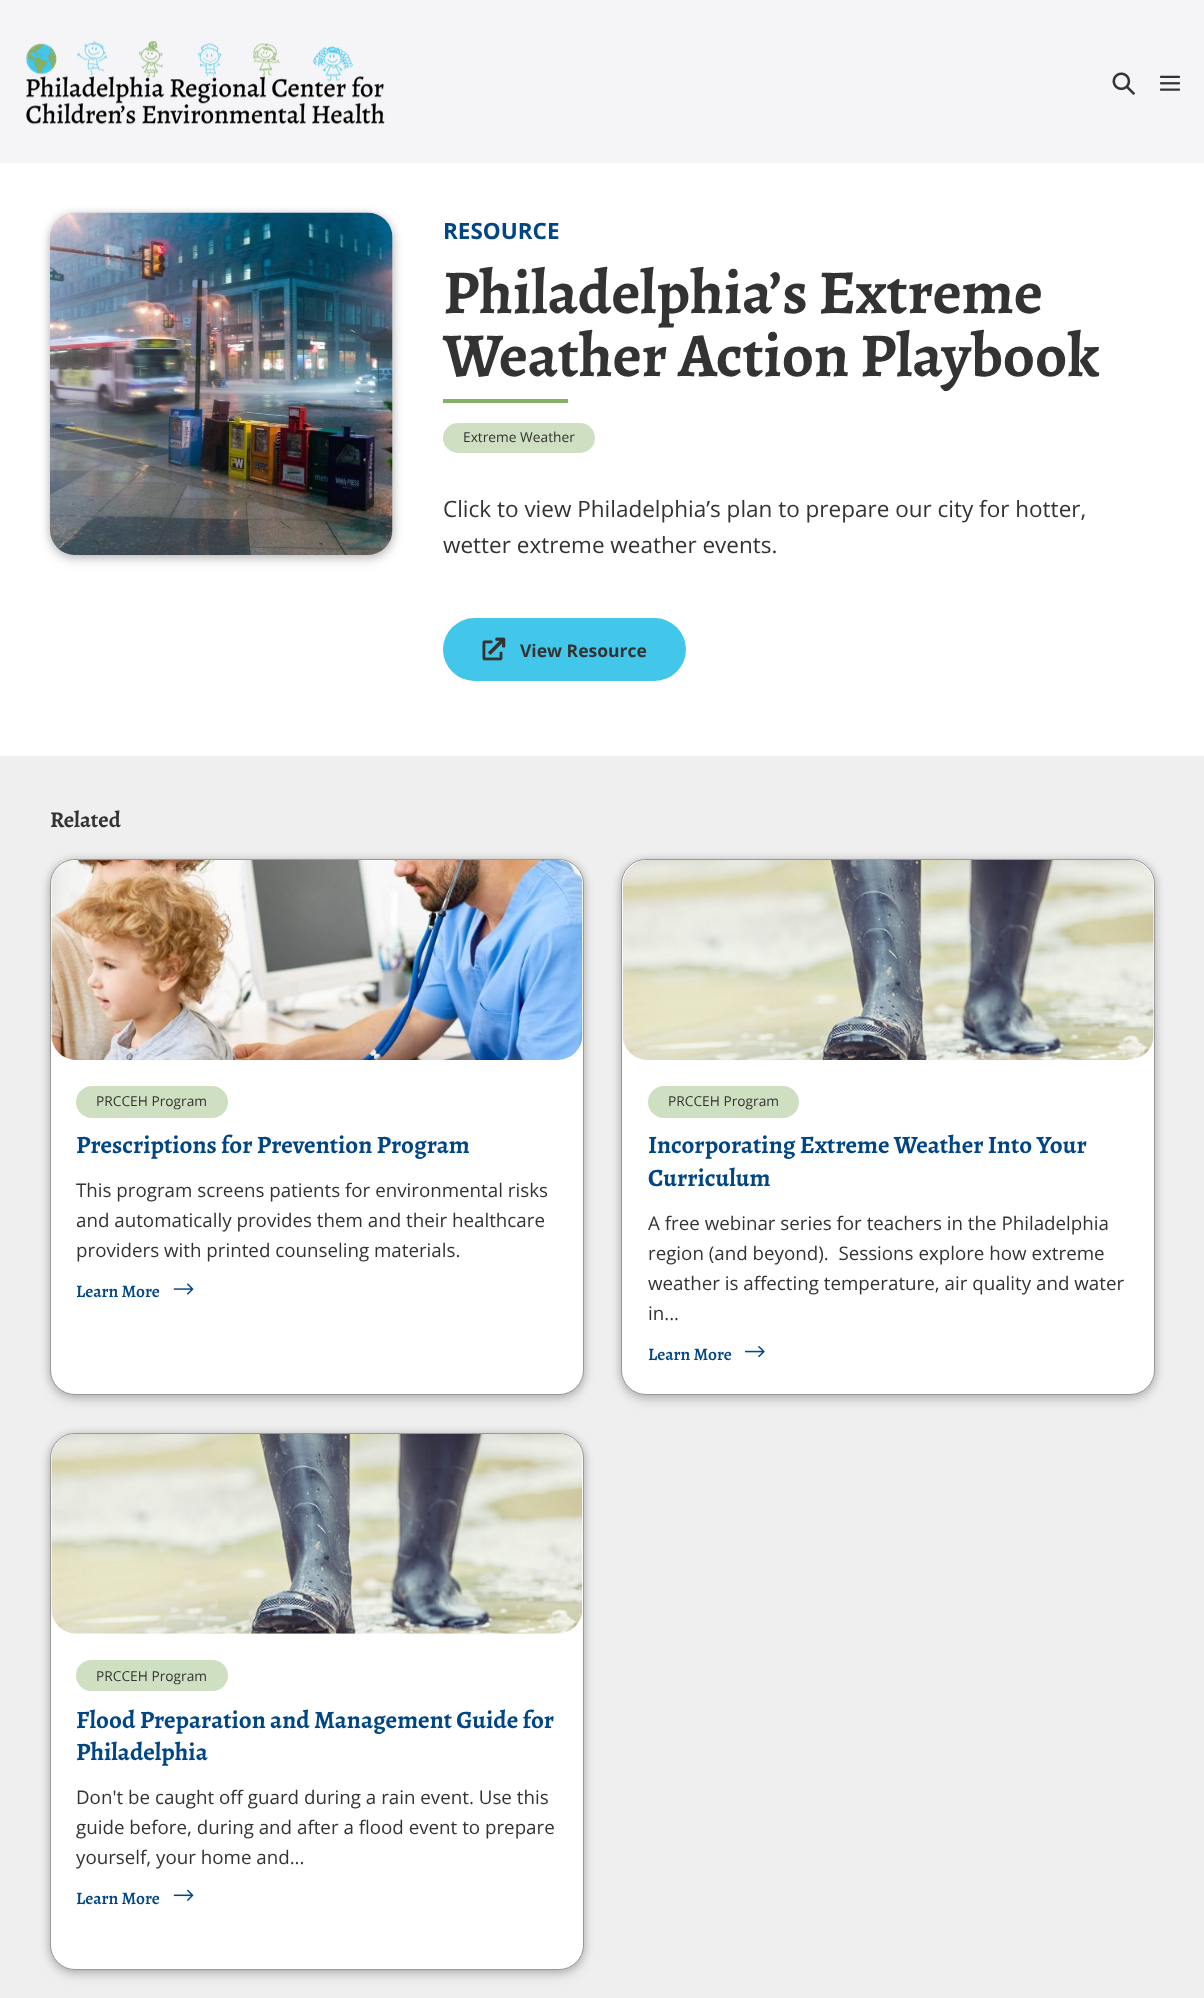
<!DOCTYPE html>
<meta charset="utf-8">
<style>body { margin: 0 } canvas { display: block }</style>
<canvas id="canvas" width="1204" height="1998"></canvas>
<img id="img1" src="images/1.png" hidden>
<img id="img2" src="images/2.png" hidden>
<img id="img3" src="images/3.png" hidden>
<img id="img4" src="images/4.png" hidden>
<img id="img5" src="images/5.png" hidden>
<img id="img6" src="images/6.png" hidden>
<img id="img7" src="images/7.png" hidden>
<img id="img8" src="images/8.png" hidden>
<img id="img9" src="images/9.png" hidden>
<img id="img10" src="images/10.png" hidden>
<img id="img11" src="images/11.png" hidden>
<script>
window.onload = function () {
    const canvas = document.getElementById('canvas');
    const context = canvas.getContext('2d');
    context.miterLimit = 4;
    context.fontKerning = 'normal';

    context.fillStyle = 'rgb(255, 255, 255)';
    context.fillRect(0, 0, 1204, 1998);
    context.fillStyle = 'rgb(245, 245, 247)';
    context.fillRect(0, 0, 1204, 163);
    context.drawImage(document.getElementById('img1'), 26, 40, 359, 85);
    context.drawImage(document.getElementById('img2'), 1112, 72, 23, 23);
    context.drawImage(document.getElementById('img3'), 1160, 75, 20, 16);
    context.fillStyle = 'rgba(0, 0, 0, 0.1)';
    context.filter = 'blur(6px)';
    context.beginPath();
    context.roundRect(50, 219, 343, 342, 25);
    context.fill();
    context.filter = 'none';
    context.fillStyle = 'rgba(0, 0, 0, 0.23)';
    context.filter = 'blur(4px)';
    context.beginPath();
    context.roundRect(50, 214, 343, 342, 25);
    context.fill();
    context.filter = 'none';
    context.drawImage(document.getElementById('img4'), 50, 212, 343, 343);
    context.fillStyle = 'rgb(134, 176, 101)';
    context.fillRect(443, 399, 125, 4);
    context.fillStyle = 'rgb(207, 223, 193)';
    context.beginPath();
    context.roundRect(443, 423, 152, 30, 15);
    context.fill();
    context.fillStyle = 'rgb(66, 198, 234)';
    context.beginPath();
    context.roundRect(443, 618, 243, 63, 31.5);
    context.fill();
    context.drawImage(document.getElementById('img5'), 482, 637, 24, 24);
    context.fillStyle = 'rgb(239, 239, 239)';
    context.fillRect(0, 756, 1204, 1242);
    context.fillStyle = 'rgba(0, 0, 0, 0.23)';
    context.filter = 'blur(4px)';
    context.beginPath();
    context.roundRect(50, 860, 534, 536, 25);
    context.fill();
    context.filter = 'none';
    context.fillStyle = 'rgba(0, 0, 0, 0.1)';
    context.filter = 'blur(6px)';
    context.beginPath();
    context.roundRect(50, 865, 534, 536, 25);
    context.fill();
    context.filter = 'none';
    context.fillStyle = 'rgb(255, 255, 255)';
    context.beginPath();
    context.roundRect(50.5, 859.5, 533, 535, 24.5);
    context.fill();
    context.strokeStyle = 'rgb(153, 153, 153)';
    context.stroke();
    context.drawImage(document.getElementById('img6'), 51, 860, 532, 200);
    context.fillStyle = 'rgb(207, 223, 193)';
    context.beginPath();
    context.roundRect(76, 1086, 152, 32, 16);
    context.fill();
    context.drawImage(document.getElementById('img7'), 173, 1283, 21, 12);
    context.fillStyle = 'rgba(0, 0, 0, 0.23)';
    context.filter = 'blur(4px)';
    context.beginPath();
    context.roundRect(621, 860, 534, 536, 25);
    context.fill();
    context.filter = 'none';
    context.fillStyle = 'rgba(0, 0, 0, 0.1)';
    context.filter = 'blur(6px)';
    context.beginPath();
    context.roundRect(621, 865, 534, 536, 25);
    context.fill();
    context.filter = 'none';
    context.fillStyle = 'rgb(255, 255, 255)';
    context.beginPath();
    context.roundRect(621.5, 859.5, 533, 535, 24.5);
    context.fill();
    context.stroke();
    context.drawImage(document.getElementById('img8'), 622, 860, 532, 200);
    context.fillStyle = 'rgb(207, 223, 193)';
    context.beginPath();
    context.roundRect(648, 1086, 151, 32, 16);
    context.fill();
    context.drawImage(document.getElementById('img9'), 745, 1346, 20, 12);
    context.fillStyle = 'rgba(0, 0, 0, 0.23)';
    context.filter = 'blur(4px)';
    context.beginPath();
    context.roundRect(50, 1434, 534, 537, 25);
    context.fill();
    context.filter = 'none';
    context.fillStyle = 'rgba(0, 0, 0, 0.1)';
    context.filter = 'blur(6px)';
    context.beginPath();
    context.roundRect(50, 1439, 534, 537, 25);
    context.fill();
    context.filter = 'none';
    context.fillStyle = 'rgb(255, 255, 255)';
    context.beginPath();
    context.roundRect(50.5, 1433.5, 533, 536, 24.5);
    context.fill();
    context.stroke();
    context.drawImage(document.getElementById('img10'), 51, 1434, 532, 200);
    context.fillStyle = 'rgb(207, 223, 193)';
    context.beginPath();
    context.roundRect(76, 1660, 152, 31, 15.5);
    context.fill();
    context.drawImage(document.getElementById('img11'), 173, 1889, 21, 12);
    context.font = 'bold 22.5px Open Sans';
    context.fillStyle = 'rgb(0, 70, 133)';
    context.fillText('RESOURCE', 443, 239);
    context.font = 'bold 62.5px Alegreya';
    context.fillStyle = 'rgb(51, 51, 51)';
    context.fillText('Philadelphia’s Extreme', 443, 313);
    context.fillText('Weather Action Playbook', 443, 376);
    context.font = '13.75px Open Sans';
    context.fillText('Extreme Weather', 463, 442);
    context.font = '22.5px Open Sans';
    context.fillText('Click to view Philadelphia’s plan to prepare our city for hotter,', 443, 517);
    context.fillText('wetter extreme weather events.', 443, 553);
    context.font = 'bold 17.5px Open Sans';
    context.fillText('View Resource', 520, 657);
    context.font = 'bold 22.5px Alegreya';
    context.fillText('Related', 50, 827);
    context.font = '13.75px Open Sans';
    context.fillText('PRCCEH Program', 96, 1106);
    context.font = 'bold 25px Alegreya';
    context.fillStyle = 'rgb(0, 70, 133)';
    context.fillText('Prescriptions for Prevention Program', 76, 1153);
    context.font = '18.75px Open Sans';
    context.fillStyle = 'rgb(51, 51, 51)';
    context.fillText('This program screens patients for environmental risks', 76, 1197);
    context.fillText('and automatically provides them and their healthcare', 76, 1227);
    context.fillText('providers with printed counseling materials.', 76, 1257);
    context.font = '600 17.5px Alegreya';
    context.fillStyle = 'rgb(0, 70, 133)';
    context.fillText('Learn More', 76, 1297);
    context.font = '13.75px Open Sans';
    context.fillStyle = 'rgb(51, 51, 51)';
    context.fillText('PRCCEH Program', 668, 1106);
    context.font = 'bold 25px Alegreya';
    context.fillStyle = 'rgb(0, 70, 133)';
    context.fillText('Incorporating Extreme Weather Into Your', 648, 1153);
    context.fillText('Curriculum', 648, 1186);
    context.font = '18.75px Open Sans';
    context.fillStyle = 'rgb(51, 51, 51)';
    context.fillText('A free webinar series for teachers in the Philadelphia', 648, 1230);
    context.fillText('region (and beyond).  Sessions explore how extreme', 648, 1260);
    context.fillText('weather is affecting temperature, air quality and water', 648, 1290);
    context.fillText('in...', 648, 1320);
    context.font = '600 17.5px Alegreya';
    context.fillStyle = 'rgb(0, 70, 133)';
    context.fillText('Learn More', 648, 1360);
    context.font = '13.75px Open Sans';
    context.fillStyle = 'rgb(51, 51, 51)';
    context.fillText('PRCCEH Program', 96, 1681);
    context.font = 'bold 25px Alegreya';
    context.fillStyle = 'rgb(0, 70, 133)';
    context.fillText('Flood Preparation and Management Guide for', 76, 1728);
    context.fillText('Philadelphia', 76, 1760);
    context.font = '18.75px Open Sans';
    context.fillStyle = 'rgb(51, 51, 51)';
    context.fillText('Don\'t be caught off guard during a rain event. Use this', 76, 1804);
    context.fillText('guide before, during and after a flood event to prepare', 76, 1834);
    context.fillText('yourself, your home and...', 76, 1864);
    context.font = '600 17.5px Alegreya';
    context.fillStyle = 'rgb(0, 70, 133)';
    context.fillText('Learn More', 76, 1904);
};
</script>
